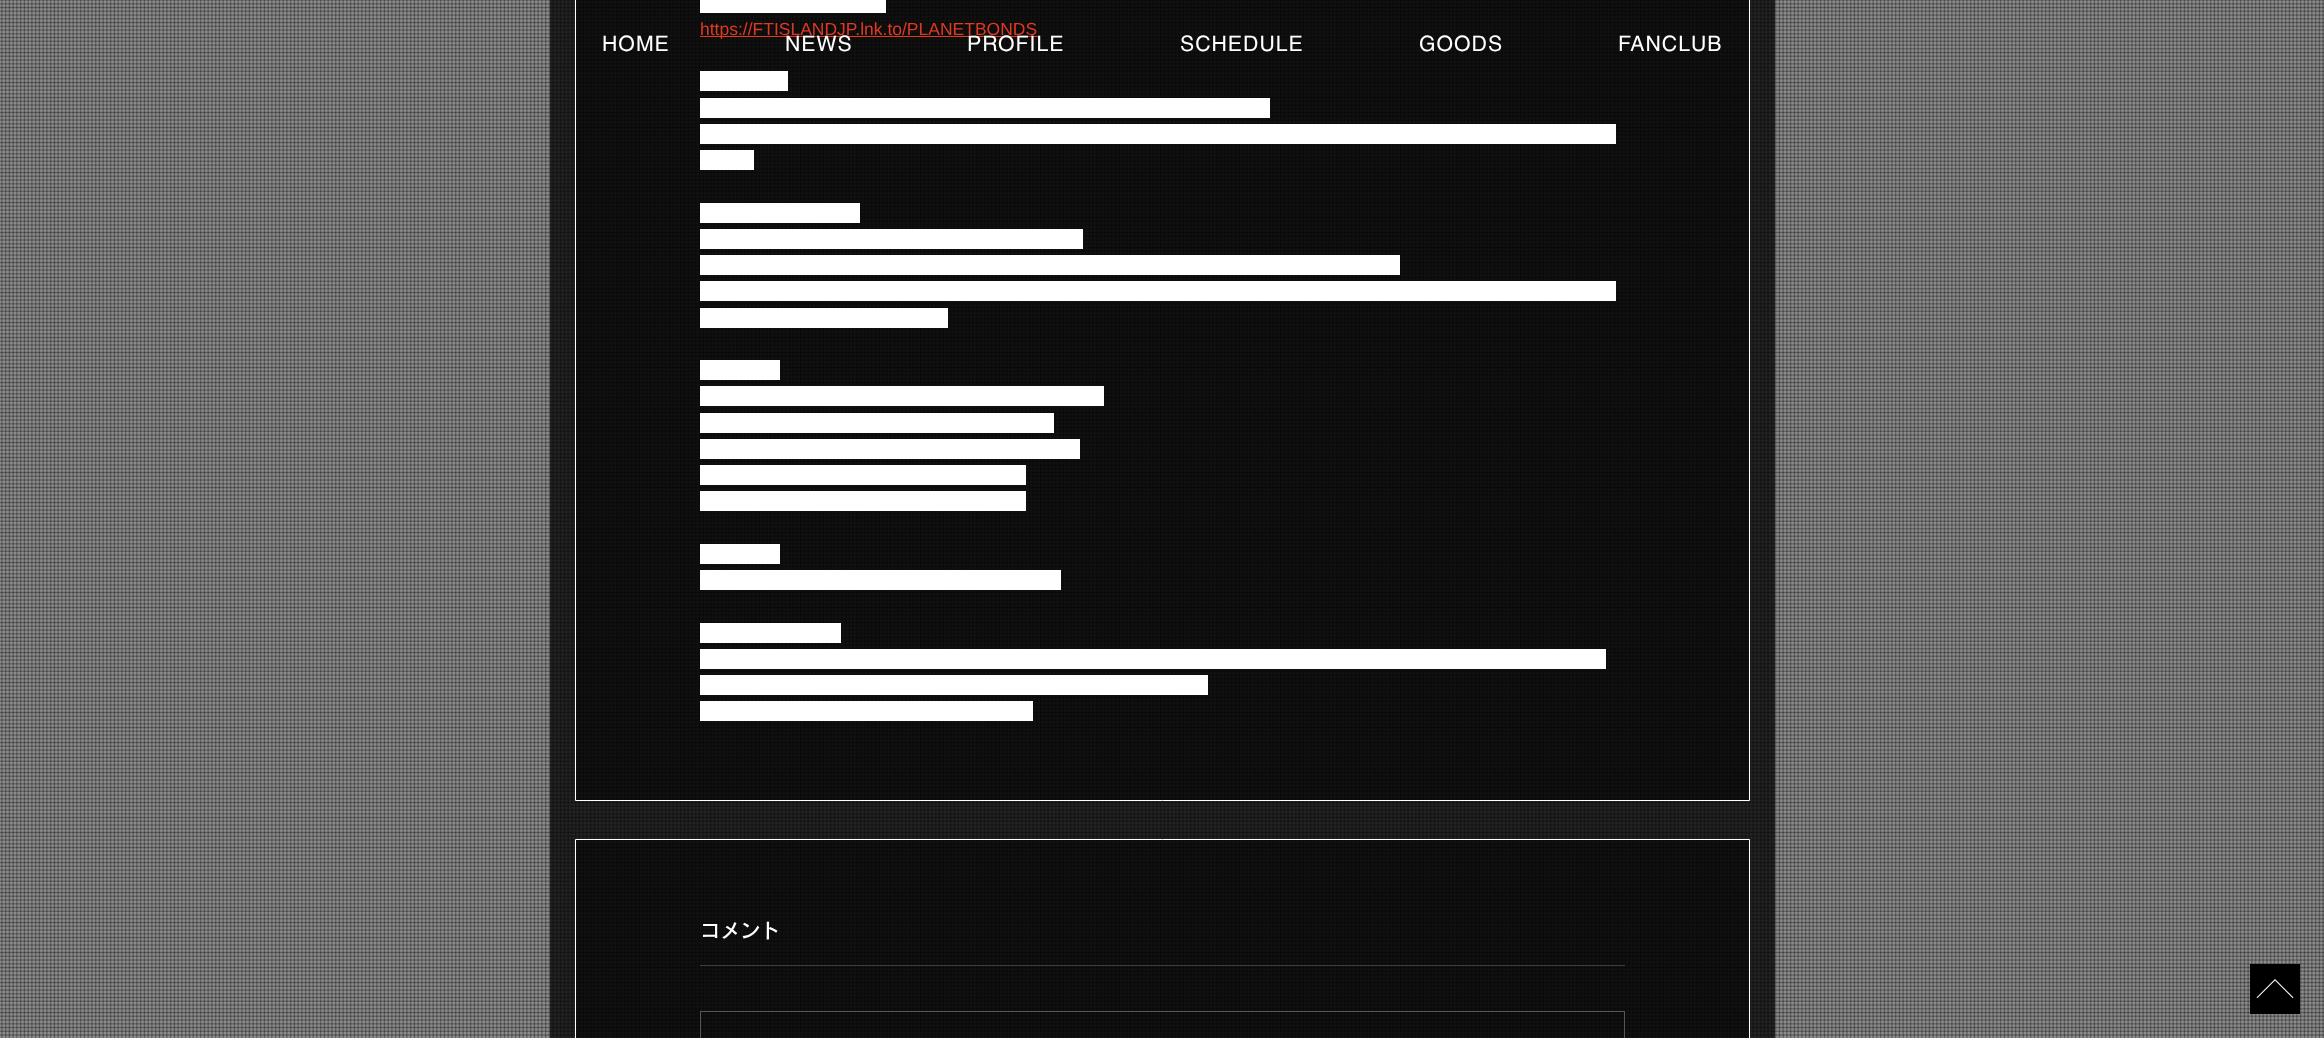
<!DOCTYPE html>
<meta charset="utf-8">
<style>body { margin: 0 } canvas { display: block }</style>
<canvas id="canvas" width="2324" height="1038"></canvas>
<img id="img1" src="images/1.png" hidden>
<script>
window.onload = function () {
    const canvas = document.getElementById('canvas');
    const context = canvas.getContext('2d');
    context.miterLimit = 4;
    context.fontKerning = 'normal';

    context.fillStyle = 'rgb(141, 141, 141)';
    context.fillRect(0, 0, 2324, 1038);
    context.drawImage(document.getElementById('img1'), 0, 0, 2324, 1038);
    context.fillStyle = 'rgba(0, 0, 0, 0.75)';
    context.fillRect(550, 0, 1225, 1038);
    context.fillStyle = 'rgba(0, 0, 0, 0.5)';
    context.beginPath();
    context.rect(575.5, -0.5, 1174, 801);
    context.fill();
    context.strokeStyle = 'rgb(255, 255, 255)';
    context.stroke();
    context.fillStyle = 'rgb(255, 255, 255)';
    context.fillRect(700, 0, 186, 13);
    context.fillStyle = 'rgb(225, 57, 34)';
    context.fillRect(700, 36, 338, 1);
    context.fillStyle = 'rgb(255, 255, 255)';
    context.fillRect(700, 71, 88, 20);
    context.fillRect(700, 98, 570, 20);
    context.fillRect(700, 124, 916, 20);
    context.fillRect(700, 150, 54, 20);
    context.fillRect(700, 203, 160, 20);
    context.fillRect(700, 229, 383, 20);
    context.fillRect(700, 255, 700, 20);
    context.fillRect(700, 281, 916, 20);
    context.fillRect(700, 308, 248, 20);
    context.fillRect(700, 360, 80, 20);
    context.fillRect(700, 386, 404, 20);
    context.fillRect(700, 413, 354, 20);
    context.fillRect(700, 439, 380, 20);
    context.fillRect(700, 465, 326, 20);
    context.fillRect(700, 491, 326, 20);
    context.fillRect(700, 544, 80, 20);
    context.fillRect(700, 570, 361, 20);
    context.fillRect(700, 623, 141, 20);
    context.fillRect(700, 649, 906, 20);
    context.fillRect(700, 675, 508, 20);
    context.fillRect(700, 701, 333, 20);
    context.fillStyle = 'rgba(0, 0, 0, 0.5)';
    context.beginPath();
    context.rect(575.5, 839.5, 1174, 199);
    context.fill();
    context.stroke();
    context.fillStyle = 'rgba(255, 255, 255, 0.2)';
    context.fillRect(700, 965, 925, 1);
    context.strokeStyle = 'rgba(255, 255, 255, 0.3)';
    context.strokeRect(700.5, 1011.5, 924, 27);
    context.fillStyle = 'rgb(0, 0, 0)';
    context.fillRect(2250, 964, 50, 50);
    context.fillStyle = 'rgb(255, 255, 255)';
    context.beginPath();
    context.moveTo(2292.5, 998);
    context.lineTo(2275, 980.5);
    context.lineTo(2257.5, 998);
    context.lineTo(2256.5, 997.5);
    context.lineTo(2275, 979);
    context.lineTo(2293.5, 997.5);
    context.closePath();
    context.fill();
    context.font = '17.5px Liberation Sans';
    context.fillStyle = 'rgb(225, 57, 34)';
    context.fillText('https://FTISLANDJP.lnk.to/PLANETBONDS', 700, 35);
    context.font = '600 20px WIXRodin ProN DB';
    context.fillStyle = 'rgb(255, 255, 255)';
    context.fillText('コメント', 700, 938);
    context.letterSpacing = '1px';
    context.font = '21.25px helvetica';
    context.fillText('HOME', 602, 51);
    context.fillText('NEWS', 785, 51);
    context.fillText('PROFILE', 967, 51);
    context.fillText('SCHEDULE', 1180, 51);
    context.fillText('GOODS', 1419, 51);
    context.fillText('FANCLUB', 1618, 51);
};
</script>
